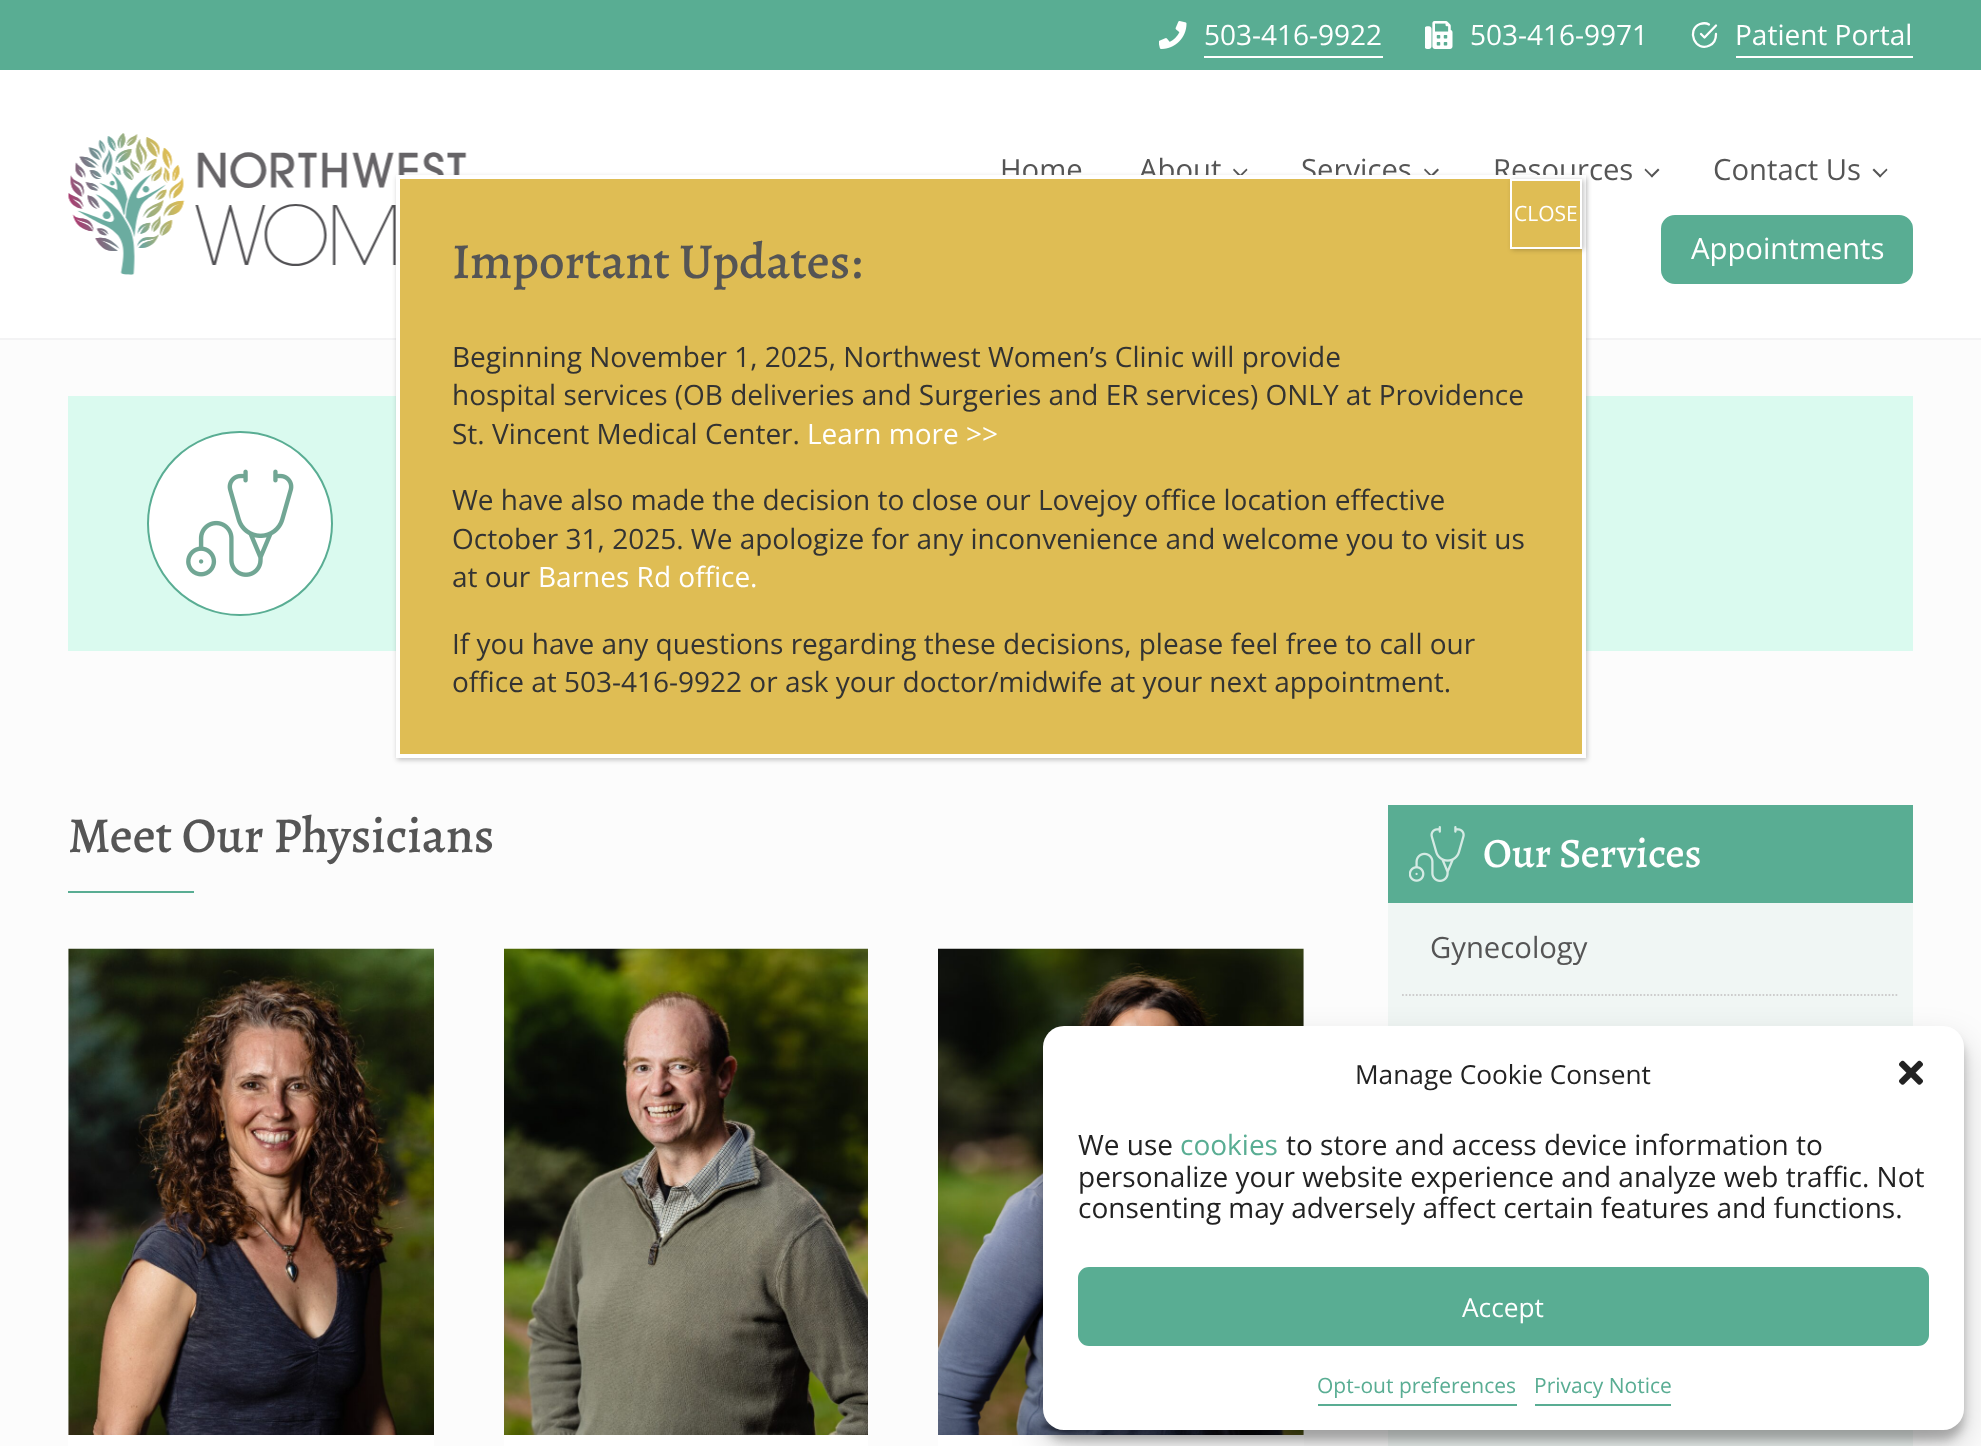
<!DOCTYPE html>
<meta charset="utf-8">
<style>body { margin: 0 } canvas { display: block }</style>
<canvas id="canvas" width="1981" height="1446"></canvas>
<img id="img1" src="images/1.png" hidden>
<img id="img2" src="images/2.png" hidden>
<img id="img3" src="images/3.png" hidden>
<img id="img4" src="images/4.png" hidden>
<img id="img5" src="images/5.png" hidden>
<img id="img6" src="images/6.png" hidden>
<img id="img7" src="images/7.png" hidden>
<img id="img8" src="images/8.png" hidden>
<img id="img9" src="images/9.png" hidden>
<script>
window.onload = function () {
    const canvas = document.getElementById('canvas');
    const context = canvas.getContext('2d');
    context.miterLimit = 4;
    context.fontKerning = 'normal';

    context.fillStyle = 'rgb(252, 252, 252)';
    context.fillRect(0, 0, 1981, 1446);
    context.fillStyle = 'rgb(89, 173, 147)';
    context.fillRect(0, 0, 1981, 70);
    context.drawImage(document.getElementById('img1'), 1159, 21, 28, 28);
    context.fillStyle = 'rgb(255, 255, 255)';
    context.fillRect(1204, 56, 179, 2);
    context.drawImage(document.getElementById('img2'), 1425, 21, 28, 28);
    context.beginPath();
    context.moveTo(1716, 34);
    context.bezierCurveTo(1716, 39, 1714, 43.5, 1709.5, 45.5);
    context.bezierCurveTo(1695.5, 52.5, 1685.5, 30, 1700, 24);
    context.bezierCurveTo(1703, 23, 1706.5, 23, 1709, 24.5);
    context.moveTo(1716, 25.5);
    context.lineTo(1704.5, 37.5);
    context.lineTo(1701, 34);
    context.strokeStyle = 'rgb(255, 255, 255)';
    context.lineWidth = 2.3;
    context.lineCap = 'round';
    context.lineJoin = 'round';
    context.stroke();
    context.fillRect(1736, 56, 177, 2);
    context.fillRect(0, 70, 1981, 268);
    context.fillStyle = 'rgb(243, 243, 244)';
    context.fillRect(0, 338, 1981, 2);
    context.drawImage(document.getElementById('img3'), 68, 133, 399, 142);
    context.fillStyle = 'rgb(85, 85, 85)';
    context.beginPath();
    context.moveTo(1246.5, 168.5);
    context.lineTo(1247.5, 170);
    context.lineTo(1240, 177.5);
    context.lineTo(1239, 176);
    context.closePath();
    context.fill();
    context.beginPath();
    context.moveTo(1234, 168.5);
    context.lineTo(1241.5, 176);
    context.lineTo(1240, 177.5);
    context.lineTo(1233, 170);
    context.closePath();
    context.fill();
    context.beginPath();
    context.moveTo(1437.5, 168.5);
    context.lineTo(1439, 170);
    context.lineTo(1431.5, 177.5);
    context.lineTo(1430, 176);
    context.closePath();
    context.fill();
    context.beginPath();
    context.moveTo(1425, 168.5);
    context.lineTo(1432.5, 176);
    context.lineTo(1431.5, 177.5);
    context.lineTo(1424, 170);
    context.closePath();
    context.fill();
    context.beginPath();
    context.moveTo(1658, 168.5);
    context.lineTo(1659.5, 170);
    context.lineTo(1652, 177.5);
    context.lineTo(1650.5, 176);
    context.closePath();
    context.fill();
    context.beginPath();
    context.moveTo(1645.5, 168.5);
    context.lineTo(1653, 176);
    context.lineTo(1652, 177.5);
    context.lineTo(1644.5, 170);
    context.closePath();
    context.fill();
    context.beginPath();
    context.moveTo(1886.5, 168.5);
    context.lineTo(1887.5, 170);
    context.lineTo(1880, 177.5);
    context.lineTo(1879, 176);
    context.closePath();
    context.fill();
    context.beginPath();
    context.moveTo(1874, 168.5);
    context.lineTo(1881.5, 176);
    context.lineTo(1880, 177.5);
    context.lineTo(1872.5, 170);
    context.closePath();
    context.fill();
    context.fillStyle = 'rgb(89, 173, 147)';
    context.beginPath();
    context.roundRect(1662, 216, 250, 67, 13);
    context.fill();
    context.strokeStyle = 'rgb(89, 173, 147)';
    context.lineWidth = 2;
    context.lineJoin = 'miter';
    context.stroke();
    context.fillStyle = 'rgb(218, 250, 239)';
    context.fillRect(68, 396, 1845, 255);
    context.fillStyle = 'rgb(255, 255, 255)';
    context.beginPath();
    context.roundRect(148, 432, 184, 183, 91.5);
    context.fill();
    context.stroke();
    context.drawImage(document.getElementById('img4'), 186, 469, 108, 108);
    context.fillStyle = 'rgb(89, 173, 147)';
    context.fillRect(68, 891, 126, 2);
    context.fillStyle = 'rgb(255, 255, 255)';
    context.beginPath();
    context.roundRect(68, 949, 366, 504, 7);
    context.fill();
    context.drawImage(document.getElementById('img5'), 68, 948, 366, 487);
    context.fillRect(504, 1435, 364, 11);
    context.drawImage(document.getElementById('img6'), 504, 948, 364, 487);
    context.beginPath();
    context.roundRect(938, 949, 366, 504, 7);
    context.fill();
    context.drawImage(document.getElementById('img7'), 938, 948, 366, 487);
    context.fillStyle = 'rgb(240, 246, 244)';
    context.fillRect(1388, 903, 525, 543);
    context.fillStyle = 'rgb(89, 173, 147)';
    context.fillRect(1388, 805, 525, 98);
    context.drawImage(document.getElementById('img8'), 1409, 826, 56, 56);
    context.beginPath();
    context.moveTo(1402, 995);
    context.lineTo(1899, 995);
    context.strokeStyle = 'rgb(205, 205, 205)';
    context.lineWidth = 1.8;
    context.lineCap = 'butt';
    context.setLineDash([1.75, 1.75]);
    context.stroke();
    context.fillStyle = 'rgba(2, 2, 2, 0.23)';
    context.filter = 'blur(2.5px)';
    context.beginPath();
    context.rect(397, 177, 1190, 583);
    context.fill();
    context.filter = 'none';
    context.fillStyle = 'rgba(0, 0, 0, 0.23)';
    context.filter = 'blur(5px)';
    context.beginPath();
    context.roundRect(1043, 1036, 921, 404, 21);
    context.fill();
    context.filter = 'none';
    context.fillStyle = 'rgba(0, 0, 0, 0.19)';
    context.filter = 'blur(17.5px)';
    context.beginPath();
    context.roundRect(1043, 1043, 921, 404, 21);
    context.fill();
    context.filter = 'none';
    context.fillStyle = 'rgb(255, 255, 255)';
    context.beginPath();
    context.roundRect(1043, 1026, 921, 404, 21);
    context.fill();
    context.drawImage(document.getElementById('img9'), 1899, 1060, 24, 25);
    context.fillStyle = 'rgb(89, 173, 147)';
    context.beginPath();
    context.roundRect(1079, 1268, 849, 77, 10);
    context.fill();
    context.strokeStyle = 'rgb(89, 173, 147)';
    context.lineWidth = 2;
    context.setLineDash([]);
    context.stroke();
    context.fillRect(1318, 1404, 199, 2);
    context.fillRect(1535, 1404, 136, 2);
    context.font = '28px Open Sans';
    context.fillStyle = 'rgb(255, 255, 255)';
    context.fillText('503-416-9922', 1204, 45);
    context.fillText('503-416-9971', 1470, 45);
    context.fillText('Patient Portal', 1735, 45);
    context.font = '29.25px Open Sans';
    context.fillStyle = 'rgb(85, 85, 85)';
    context.fillText('Home', 1000, 180);
    context.fillText('About', 1139, 180);
    context.fillText('Services', 1301, 180);
    context.fillText('Resources', 1493, 180);
    context.fillText('Contact Us', 1713, 180);
    context.fillStyle = 'rgb(255, 255, 255)';
    context.fillText('Appointments', 1691, 259);
    context.font = '500 50.5px Alegreya';
    context.fillStyle = 'rgb(85, 85, 85)';
    context.fillText('Meet Our Physicians', 68, 852);
    context.font = '500 42px Alegreya';
    context.fillStyle = 'rgb(255, 255, 255)';
    context.fillText('Our Services', 1483, 867);
    context.font = '29.25px Open Sans';
    context.fillStyle = 'rgb(85, 85, 85)';
    context.fillText('Gynecology', 1430, 958);
    context.fillStyle = 'rgb(223, 189, 84)';
    context.beginPath();
    context.rect(398, 177, 1186, 579);
    context.fill();
    context.strokeStyle = 'rgb(255, 255, 255)';
    context.lineWidth = 4;
    context.stroke();
    context.save();
    context.beginPath();
    context.moveTo(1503, 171);
    context.lineTo(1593, 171);
    context.lineTo(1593, 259);
    context.lineTo(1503, 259);
    context.closePath();
    context.moveTo(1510, 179);
    context.lineTo(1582, 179);
    context.lineTo(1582, 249);
    context.lineTo(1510, 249);
    context.closePath();
    context.clip('evenodd');
    context.fillStyle = 'rgba(2, 2, 2, 0.23)';
    context.filter = 'blur(2.5px)';
    context.beginPath();
    context.rect(1512, 180, 72, 70);
    context.fill();
    context.filter = 'none';
    context.restore();
    context.lineWidth = 2;
    context.strokeRect(1511, 180, 70, 68);
    context.font = '21px Open Sans';
    context.fillStyle = 'rgb(255, 255, 255)';
    context.fillText('CLOSE', 1514, 221);
    context.font = '500 50.5px Alegreya';
    context.fillStyle = 'rgb(85, 85, 85)';
    context.fillText('Important Updates:', 452, 278);
    context.font = '28px Open Sans';
    context.fillStyle = 'rgb(51, 51, 51)';
    context.fillText('Beginning November 1, 2025, Northwest Women’s Clinic will provide', 452, 367);
    context.fillText('hospital services (OB deliveries and Surgeries and ER services) ONLY at Providence', 452, 405);
    context.fillText('St. Vincent Medical Center.', 452, 444);
    context.fillStyle = 'rgb(255, 255, 255)';
    context.fillText('Learn more >>', 807, 444);
    context.fillStyle = 'rgb(51, 51, 51)';
    context.fillText('We have also made the decision to close our Lovejoy office location effective', 452, 510);
    context.fillText('October 31, 2025. We apologize for any inconvenience and welcome you to visit us', 452, 549);
    context.fillText('at our', 452, 587);
    context.fillStyle = 'rgb(255, 255, 255)';
    context.fillText('Barnes Rd office', 538, 587);
    context.fillText('.', 750, 587);
    context.fillStyle = 'rgb(51, 51, 51)';
    context.fillText('If you have any questions regarding these decisions, please feel free to call our', 452, 654);
    context.fillText('office at 503-416-9922 or ask your doctor/midwife at your next appointment.', 452, 692);
    context.font = '26.25px Open Sans';
    context.fillStyle = 'rgb(34, 34, 34)';
    context.fillText('Manage Cookie Consent', 1355, 1084);
    context.font = '28px Open Sans';
    context.fillText('We use', 1078, 1155);
    context.fillStyle = 'rgb(89, 173, 147)';
    context.fillText('cookies', 1180, 1155);
    context.fillStyle = 'rgb(34, 34, 34)';
    context.fillText('to store and access device information to', 1286, 1155);
    context.fillText('personalize your website experience and analyze web traffic. Not', 1078, 1187);
    context.fillText('consenting may adversely affect certain features and functions.', 1078, 1218);
    context.font = '26.25px Open Sans';
    context.fillStyle = 'rgb(255, 255, 255)';
    context.fillText('Accept', 1462, 1317);
    context.font = '21px Open Sans';
    context.fillStyle = 'rgb(89, 173, 147)';
    context.fillText('Opt-out preferences', 1317, 1393);
    context.fillText('Privacy Notice', 1534, 1393);
};
</script>
